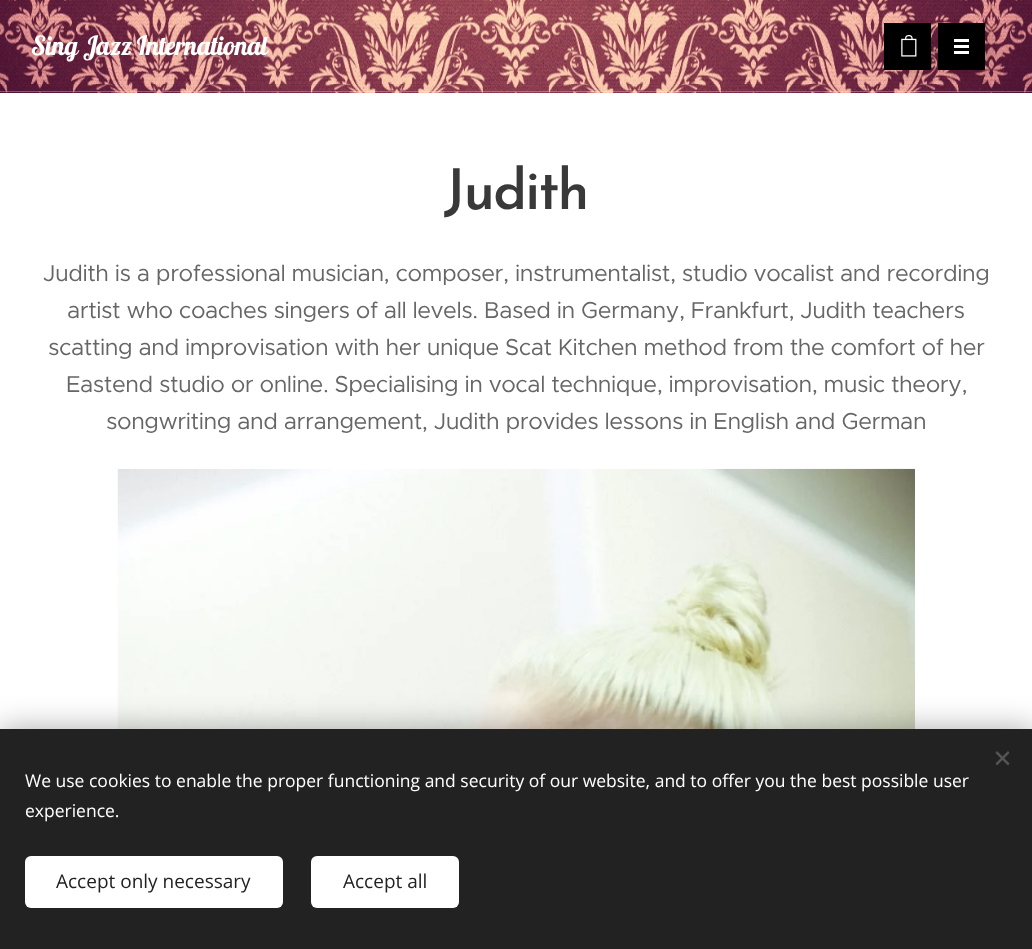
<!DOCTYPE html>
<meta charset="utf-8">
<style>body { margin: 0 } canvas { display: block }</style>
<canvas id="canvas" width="1032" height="949"></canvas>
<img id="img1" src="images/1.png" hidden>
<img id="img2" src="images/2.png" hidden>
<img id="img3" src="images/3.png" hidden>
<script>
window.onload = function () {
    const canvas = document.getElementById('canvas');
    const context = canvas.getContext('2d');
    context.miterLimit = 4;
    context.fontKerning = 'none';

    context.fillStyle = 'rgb(255, 255, 255)';
    context.fillRect(0, 0, 1032, 949);
    context.drawImage(document.getElementById('img1'), 0, 0, 1032, 93);
    context.fillStyle = 'rgba(255, 255, 255, 0.3)';
    context.fillRect(0, 91, 1032, 1);
    context.fillStyle = 'rgba(0, 0, 0, 0.5)';
    context.filter = 'blur(10px)';
    context.beginPath();
    context.rect(899, 38, 27, 27);
    context.fill();
    context.filter = 'none';
    context.fillStyle = 'rgb(0, 0, 0)';
    context.fillRect(884, 23, 47, 47);
    context.drawImage(document.getElementById('img2'), 901, 35, 16, 22);
    context.fillStyle = 'rgba(0, 0, 0, 0.5)';
    context.filter = 'blur(10px)';
    context.beginPath();
    context.rect(953, 38, 27, 27);
    context.fill();
    context.filter = 'none';
    context.fillStyle = 'rgb(0, 0, 0)';
    context.fillRect(938, 23, 47, 47);
    context.fillStyle = 'rgb(255, 255, 255)';
    context.fillRect(954, 45, 15, 3);
    context.fillRect(954, 39, 15, 3);
    context.fillRect(954, 51, 15, 3);
    context.drawImage(document.getElementById('img3'), 117, 468, 798, 261);
    context.fillStyle = 'rgba(0, 0, 0, 0.33)';
    context.filter = 'blur(15.5px)';
    context.beginPath();
    context.rect(0, 729, 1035, 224);
    context.fill();
    context.filter = 'none';
    context.fillStyle = 'rgb(34, 34, 34)';
    context.fillRect(0, 729, 1032, 220);
    context.fillStyle = 'rgb(85, 85, 85)';
    context.beginPath();
    context.moveTo(995.5, 763.5);
    context.lineTo(1008, 751);
    context.lineTo(1009.5, 753);
    context.lineTo(997, 765.5);
    context.closePath();
    context.fill();
    context.beginPath();
    context.moveTo(997, 751);
    context.lineTo(1009.5, 763.5);
    context.lineTo(1008, 765.5);
    context.lineTo(995.5, 753);
    context.closePath();
    context.fill();
    context.fillStyle = 'rgb(255, 255, 255)';
    context.beginPath();
    context.roundRect(25, 856, 258, 52, 6);
    context.fill();
    context.beginPath();
    context.roundRect(311, 856, 148, 52, 6);
    context.fill();
    context.letterSpacing = '-0.45px';
    context.font = '26.25px Lobster';
    context.fillText('Sing Jazz International', 31, 55);
    context.letterSpacing = '-1.75px';
    context.font = '600 56px Josefin Sans';
    context.fillStyle = 'rgb(57, 57, 57)';
    context.fillText('Judith', 444, 209);
    context.letterSpacing = '-0.45px';
    context.font = '23.1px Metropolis';
    context.fillStyle = 'rgb(102, 102, 102)';
    context.fillText('Judith is a professional musician, composer, instrumentalist, studio vocalist and recording', 43, 281);
    context.fillText('artist who coaches singers of all levels. Based in Germany, Frankfurt, Judith teachers', 67, 318);
    context.fillText('scatting and improvisation with her unique Scat Kitchen method from the comfort of her', 48, 355);
    context.fillText('Eastend studio or online. Specialising in vocal technique, improvisation, music theory,', 66, 392);
    context.fillText('songwriting and arrangement, Judith provides lessons in English and German', 106, 429);
    context.letterSpacing = '0px';
    context.font = '17.5px Open Sans';
    context.fillStyle = 'rgb(255, 255, 255)';
    context.fillText('We use cookies to enable the proper functioning and security of our website, and to offer you the best possible user', 25, 787);
    context.fillText('experience.', 25, 817);
    context.font = '19px Open Sans';
    context.fillStyle = 'rgb(34, 34, 34)';
    context.fillText('Accept only necessary', 56, 888);
    context.fillText('Accept all', 343, 888);
};
</script>
